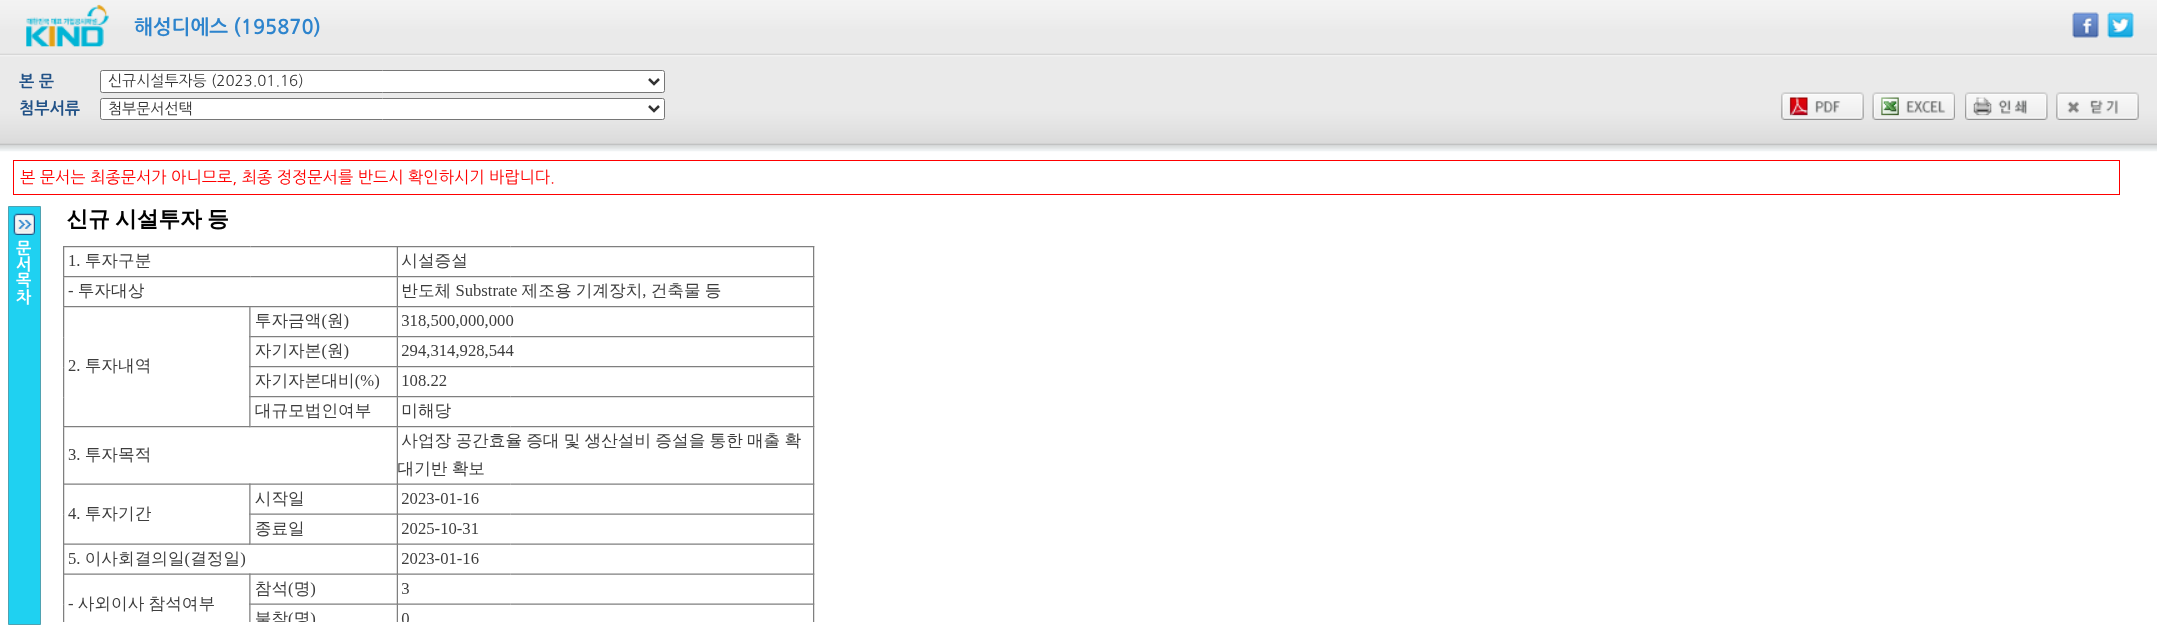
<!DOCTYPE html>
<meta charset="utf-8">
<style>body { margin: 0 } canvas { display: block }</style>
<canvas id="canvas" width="2157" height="636"></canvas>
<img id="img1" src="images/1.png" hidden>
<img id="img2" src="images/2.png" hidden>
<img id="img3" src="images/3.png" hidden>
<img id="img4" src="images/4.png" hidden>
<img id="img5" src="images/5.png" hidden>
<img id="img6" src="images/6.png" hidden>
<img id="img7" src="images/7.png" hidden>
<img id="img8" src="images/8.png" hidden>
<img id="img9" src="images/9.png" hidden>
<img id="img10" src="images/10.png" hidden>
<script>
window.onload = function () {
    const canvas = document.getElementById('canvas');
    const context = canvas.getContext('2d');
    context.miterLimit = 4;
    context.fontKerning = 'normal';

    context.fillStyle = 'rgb(255, 255, 255)';
    context.fillRect(0, 0, 2157, 636);
    context.drawImage(document.getElementById('img1'), 0, 0, 2157, 152);
    context.drawImage(document.getElementById('img2'), 26, 4, 83, 43);
    context.drawImage(document.getElementById('img3'), 2072, 12, 27, 26);
    context.drawImage(document.getElementById('img4'), 2107, 12, 27, 26);
    context.beginPath();
    context.roundRect(100.5, 70.5, 564, 22, 2);
    context.fill();
    context.strokeStyle = 'rgb(118, 118, 118)';
    context.stroke();
    context.beginPath();
    context.moveTo(649, 79);
    context.lineTo(654, 84);
    context.lineTo(659, 79);
    context.strokeStyle = 'rgb(51, 51, 51)';
    context.lineWidth = 2.5;
    context.stroke();
    context.beginPath();
    context.roundRect(100.5, 98.5, 564, 21, 2);
    context.fill();
    context.strokeStyle = 'rgb(118, 118, 118)';
    context.lineWidth = 1;
    context.stroke();
    context.beginPath();
    context.moveTo(649, 106);
    context.lineTo(654, 111);
    context.lineTo(659, 106);
    context.strokeStyle = 'rgb(51, 51, 51)';
    context.lineWidth = 2.5;
    context.stroke();
    context.drawImage(document.getElementById('img5'), 1781, 92, 83, 28);
    context.drawImage(document.getElementById('img6'), 1872, 92, 83, 28);
    context.drawImage(document.getElementById('img7'), 1965, 92, 83, 28);
    context.drawImage(document.getElementById('img8'), 2056, 92, 83, 28);
    context.strokeStyle = 'rgb(255, 0, 0)';
    context.lineWidth = 1;
    context.strokeRect(13.5, 160.5, 2106, 34);
    context.fillStyle = 'rgb(31, 209, 241)';
    context.beginPath();
    context.rect(8.5, 206.5, 32, 418);
    context.fill();
    context.strokeStyle = 'rgb(79, 162, 177)';
    context.stroke();
    context.drawImage(document.getElementById('img9'), 13, 213, 22, 22);
    context.drawImage(document.getElementById('img10'), 63, 209, 752, 413);
    context.font = 'bold 20px NanumGothic';
    context.fillStyle = 'rgb(45, 132, 205)';
    context.fillText('해성디에스 (195870)', 134, 34);
    context.font = 'bold 16.25px NanumGothic';
    context.fillStyle = 'rgb(34, 82, 135)';
    context.fillText('본 문', 19, 87);
    context.font = '15px NanumGothic';
    context.fillStyle = 'rgb(51, 51, 51)';
    context.fillText('신규시설투자등 (2023.01.16)', 108, 86);
    context.font = 'bold 16.25px NanumGothic';
    context.fillStyle = 'rgb(34, 82, 135)';
    context.fillText('첨부서류', 19, 114);
    context.font = '15px NanumGothic';
    context.fillStyle = 'rgb(51, 51, 51)';
    context.fillText('첨부문서선택', 108, 114);
    context.font = '16.25px NanumGothic';
    context.fillStyle = 'rgb(255, 0, 0)';
    context.fillText('본 문서는 최종문서가 아니므로, 최종 정정문서를 반드시 확인하시기 바랍니다.', 20, 183);
    context.font = 'bold 16.25px NanumGothic';
    context.fillStyle = 'rgb(255, 255, 255)';
    context.fillText('문', 16, 254);
    context.fillText('서', 16, 270);
    context.fillText('목', 16, 286);
    context.fillText('차', 16, 303);
};
</script>
